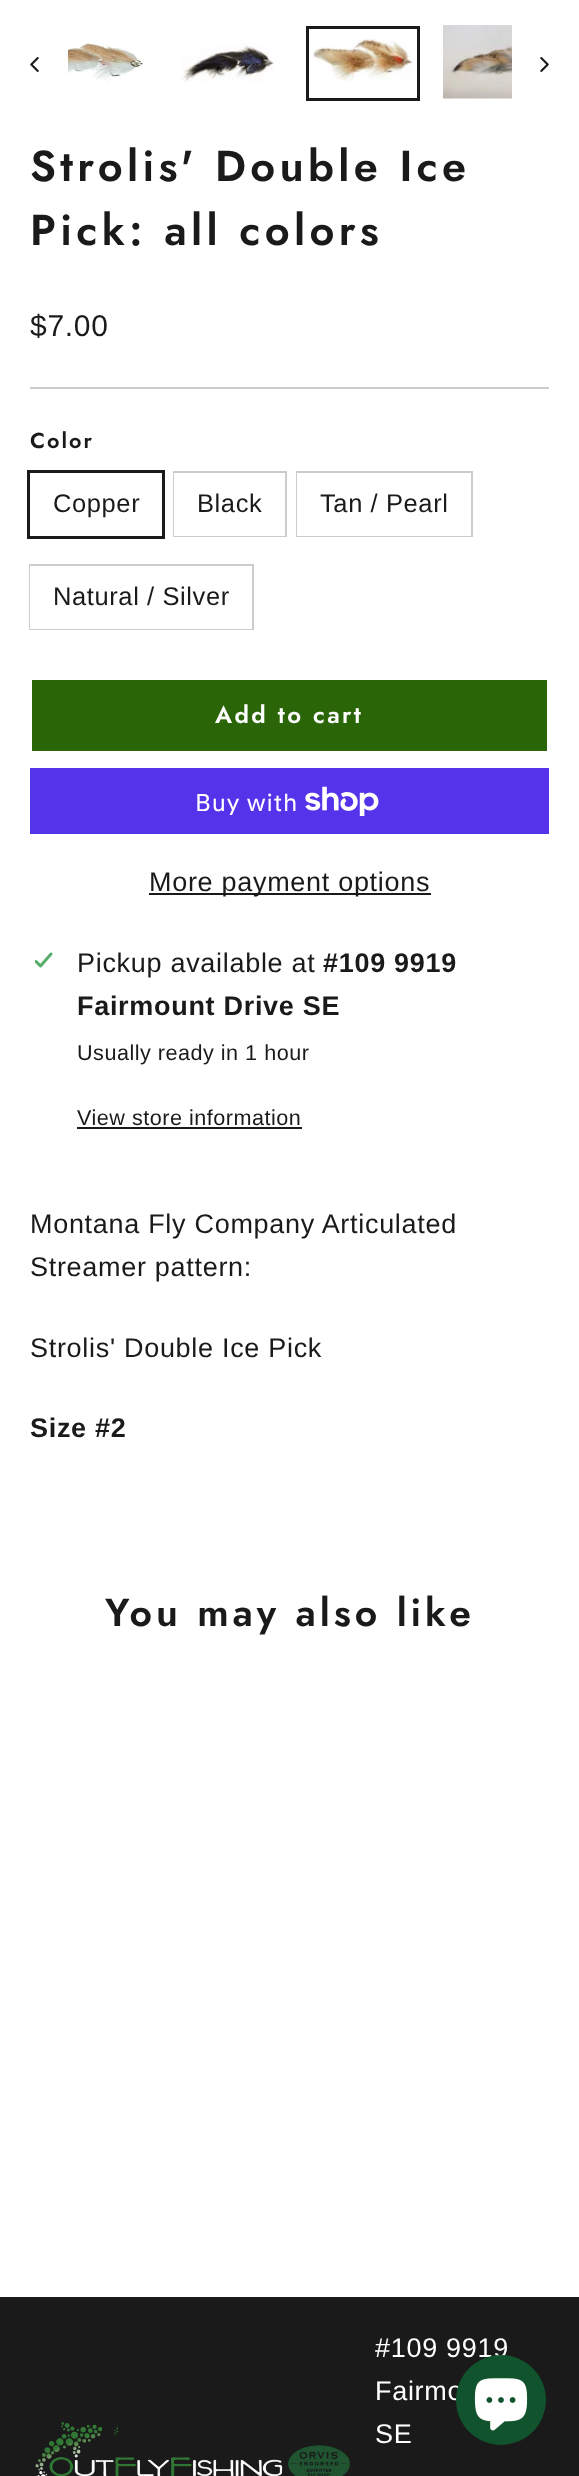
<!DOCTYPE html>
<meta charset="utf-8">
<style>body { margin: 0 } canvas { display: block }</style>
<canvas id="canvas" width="579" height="2476"></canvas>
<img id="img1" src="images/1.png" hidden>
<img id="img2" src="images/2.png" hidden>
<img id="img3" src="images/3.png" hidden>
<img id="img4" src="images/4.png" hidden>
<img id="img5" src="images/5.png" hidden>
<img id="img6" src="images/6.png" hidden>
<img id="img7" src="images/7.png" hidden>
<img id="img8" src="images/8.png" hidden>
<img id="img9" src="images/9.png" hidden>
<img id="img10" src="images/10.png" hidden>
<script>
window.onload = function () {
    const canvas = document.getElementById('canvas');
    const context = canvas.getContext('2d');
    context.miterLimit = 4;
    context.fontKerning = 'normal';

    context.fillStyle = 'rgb(255, 255, 255)';
    context.fillRect(0, 0, 579, 2476);
    context.drawImage(document.getElementById('img1'), 30, 57, 9, 15);
    context.drawImage(document.getElementById('img2'), 68, 43, 75, 41);
    context.drawImage(document.getElementById('img3'), 181, 43, 93, 39);
    context.drawImage(document.getElementById('img4'), 313, 35, 101, 46);
    context.strokeStyle = 'rgb(26, 26, 26)';
    context.lineWidth = 3;
    context.strokeRect(307.5, 27.5, 111, 72);
    context.drawImage(document.getElementById('img5'), 443, 25, 69, 74);
    context.drawImage(document.getElementById('img6'), 540, 57, 9, 15);
    context.fillStyle = 'rgb(204, 204, 204)';
    context.fillRect(30, 387, 519, 2);
    context.strokeRect(28.5, 471.5, 135, 66);
    context.strokeStyle = 'rgb(204, 204, 204)';
    context.lineWidth = 2;
    context.strokeRect(174, 472, 112, 64);
    context.fillStyle = 'rgb(255, 255, 255)';
    context.fillRect(174, 473, 111, 63);
    context.strokeRect(297, 472, 175, 64);
    context.fillRect(297, 473, 174, 63);
    context.strokeRect(30, 565, 223, 64);
    context.fillRect(30, 566, 222, 63);
    context.fillStyle = 'rgb(42, 102, 7)';
    context.fillRect(32, 680, 515, 71);
    context.fillStyle = 'rgb(84, 51, 235)';
    context.fillRect(30, 768, 519, 66);
    context.drawImage(document.getElementById('img7'), 305, 786, 74, 30);
    context.fillStyle = 'rgb(26, 26, 26)';
    context.fillRect(149, 893, 282, 2);
    context.drawImage(document.getElementById('img8'), 35, 952, 18, 16);
    context.fillRect(77, 1127, 225, 2);
    context.fillRect(0, 2297, 579, 179);
    context.drawImage(document.getElementById('img9'), 35, 2422, 315, 54);
    context.letterSpacing = '4.3px';
    context.font = '600 43.25px Jost';
    context.fillText('Strolis\' Double Ice', 30, 181);
    context.fillText('Pick: all colors', 30, 245);
    context.letterSpacing = '0.7px';
    context.font = '30px Liberation Sans';
    context.fillText('$7.00', 30, 336);
    context.letterSpacing = '2px';
    context.font = '600 21.6px Jost';
    context.fillText('Color', 30, 448);
    context.letterSpacing = '0.6px';
    context.font = '25.5px Liberation Sans';
    context.fillText('Copper', 53, 512);
    context.fillText('Black', 197, 512);
    context.fillText('Tan / Pearl', 320, 512);
    context.fillText('Natural / Silver', 53, 605);
    context.letterSpacing = '2.4px';
    context.font = '600 24px Jost';
    context.fillStyle = 'rgb(255, 255, 255)';
    context.fillText('Add to cart', 215, 723);
    context.letterSpacing = '0.7px';
    context.font = '24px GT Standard';
    context.fillText('Buy with', 195, 811);
    context.font = '27px Liberation Sans';
    context.fillStyle = 'rgb(26, 26, 26)';
    context.fillText('More payment options', 149, 891);
    context.fillText('Pickup available at', 77, 972);
    context.font = 'bold 27px Liberation Sans';
    context.fillText('#109 9919', 323, 972);
    context.fillText('Fairmount Drive SE', 77, 1015);
    context.letterSpacing = '0.5px';
    context.font = '21.6px Liberation Sans';
    context.fillText('Usually ready in 1 hour', 77, 1060);
    context.fillText('View store information', 77, 1125);
    context.letterSpacing = '0.7px';
    context.font = '27px Liberation Sans';
    context.fillText('Montana Fly Company Articulated', 30, 1233);
    context.fillText('Streamer pattern:', 30, 1276);
    context.fillText('Strolis\' Double Ice Pick', 30, 1357);
    context.font = 'bold 27px Liberation Sans';
    context.fillText('Size #2', 30, 1437);
    context.letterSpacing = '3.9px';
    context.font = '600 39px Jost';
    context.fillText('You may also like', 105, 1626);
    context.letterSpacing = '0.7px';
    context.font = '27px Liberation Sans';
    context.fillStyle = 'rgb(255, 255, 255)';
    context.fillText('#109 9919', 375, 2357);
    context.fillText('Fairmo', 375, 2400);
    context.fillText('SE', 375, 2443);
    context.fillStyle = 'rgb(17, 83, 44)';
    context.beginPath();
    context.arc(501, 2400, 45, 0, 2 * Math.PI);
    context.fill();
    context.drawImage(document.getElementById('img10'), 474, 2378, 54, 53);
};
</script>
